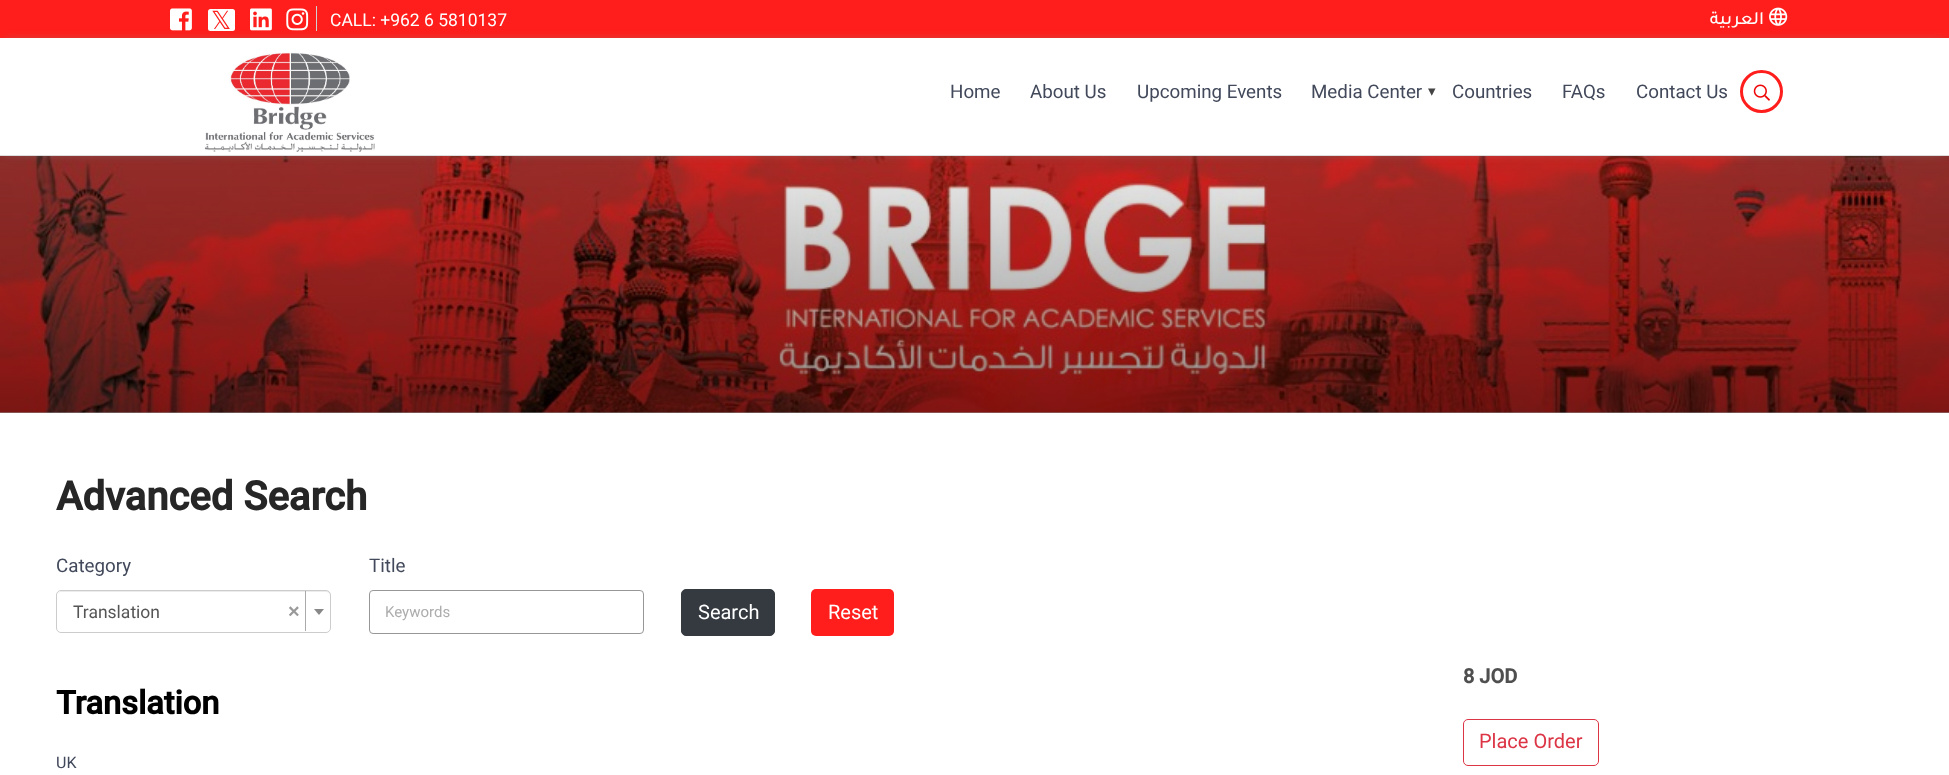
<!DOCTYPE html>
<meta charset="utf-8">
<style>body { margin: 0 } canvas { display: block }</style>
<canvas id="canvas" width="1949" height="775"></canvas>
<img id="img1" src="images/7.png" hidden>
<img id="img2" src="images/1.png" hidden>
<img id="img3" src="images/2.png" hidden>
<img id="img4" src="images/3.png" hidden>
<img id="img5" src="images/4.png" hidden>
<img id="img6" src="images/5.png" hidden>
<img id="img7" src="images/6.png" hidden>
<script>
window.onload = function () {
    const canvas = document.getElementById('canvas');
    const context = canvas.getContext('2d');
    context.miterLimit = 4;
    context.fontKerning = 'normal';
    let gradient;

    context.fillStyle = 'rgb(255, 255, 255)';
    context.fillRect(0, 0, 1949, 775);
    context.fillStyle = 'rgb(255, 30, 27)';
    context.fillRect(0, 0, 1949, 38);
    context.drawImage(document.getElementById('img1'), 0, 156, 1949, 257);
    gradient = context.createLinearGradient(975, 413, 975, 138);
    gradient.addColorStop(0, 'rgba(0, 0, 0, 0.43)');
    gradient.addColorStop(1, 'rgba(0, 0, 0, 0.05)');
    context.fillStyle = gradient;
    context.fillRect(0, 156, 1949, 257);
    context.save();
    context.beginPath();
    context.moveTo(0, 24);
    context.lineTo(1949, 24);
    context.lineTo(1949, 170);
    context.lineTo(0, 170);
    context.closePath();
    context.moveTo(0, 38);
    context.lineTo(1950, 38);
    context.lineTo(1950, 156);
    context.lineTo(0, 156);
    context.closePath();
    context.clip('evenodd');
    context.fillStyle = 'rgb(128, 128, 128)';
    context.filter = 'blur(6px)';
    context.beginPath();
    context.rect(5, 43, 1940, 108);
    context.fill();
    context.filter = 'none';
    context.restore();
    context.drawImage(document.getElementById('img2'), 170, 8, 22, 23);
    context.fillStyle = 'rgb(255, 255, 255)';
    context.beginPath();
    context.roundRect(208, 9, 27, 22, 2.5);
    context.fill();
    context.drawImage(document.getElementById('img3'), 250, 8, 22, 23);
    context.drawImage(document.getElementById('img4'), 286, 8, 23, 23);
    context.fillStyle = 'rgb(208, 208, 208)';
    context.fillRect(316, 6, 1, 25);
    context.drawImage(document.getElementById('img5'), 1769, 7, 19, 19);
    context.fillStyle = 'rgb(221, 221, 221)';
    context.fillRect(0, 155, 1949, 1);
    context.drawImage(document.getElementById('img6'), 204, 52, 171, 100);
    context.beginPath();
    context.arc(1761.5, 91.5, 20, 0, 2 * Math.PI);
    context.strokeStyle = 'rgb(255, 30, 27)';
    context.lineWidth = 3;
    context.stroke();
    context.drawImage(document.getElementById('img7'), 1753, 84, 17, 17);
    context.fillStyle = 'rgb(236, 236, 236)';
    context.beginPath();
    context.moveTo(61, 592);
    context.lineTo(326, 592);
    context.bezierCurveTo(328, 592, 330, 594, 330, 596);
    context.bezierCurveTo(330, 593, 329, 591, 326, 591);
    context.lineTo(62, 591);
    context.bezierCurveTo(59, 591, 58, 593, 58, 596);
    context.bezierCurveTo(58, 594, 59, 592, 61, 592);
    context.closePath();
    context.fill();
    context.beginPath();
    context.roundRect(56.5, 590.5, 274, 42, 4.5);
    context.strokeStyle = 'rgb(204, 204, 204)';
    context.lineWidth = 1;
    context.stroke();
    context.fillStyle = 'rgb(170, 170, 170)';
    context.fillRect(305, 591, 1, 40);
    context.fillStyle = 'rgb(136, 136, 136)';
    context.beginPath();
    context.moveTo(314, 609);
    context.lineTo(324, 609);
    context.lineTo(319, 615);
    context.closePath();
    context.fill();
    context.beginPath();
    context.roundRect(369.5, 590.5, 274, 43, 3.5);
    context.strokeStyle = 'rgb(151, 151, 151)';
    context.stroke();
    context.fillStyle = 'rgb(52, 58, 64)';
    context.beginPath();
    context.roundRect(681.5, 589.5, 93, 46, 4.5);
    context.fill();
    context.strokeStyle = 'rgb(52, 58, 64)';
    context.stroke();
    context.fillStyle = 'rgb(255, 30, 27)';
    context.beginPath();
    context.roundRect(811, 589, 83, 47, 5);
    context.fill();
    context.beginPath();
    context.roundRect(1463.5, 719.5, 135, 46, 4.5);
    context.strokeStyle = 'rgb(220, 53, 69)';
    context.stroke();
    context.font = '25px DejaVu Sans';
    context.fillStyle = 'rgb(253, 33, 30)';
    context.fillText('𝕏', 211, 29);
    context.font = '17.5px Roboto';
    context.fillStyle = 'rgb(255, 255, 255)';
    context.fillText('CALL: +962 6 5810137', 330, 26);
    context.direction = 'rtl';
    context.font = '500 18.75px Tajawal';
    context.fillText('العربية', 1764, 24);
    context.direction = 'ltr';
    context.font = '18.75px Roboto';
    context.fillStyle = 'rgb(66, 73, 91)';
    context.fillText('Home', 950, 98);
    context.fillText('About Us', 1030, 98);
    context.fillText('Upcoming Events', 1137, 98);
    context.fillText('Media Center', 1311, 98);
    context.font = '15px DejaVu Sans';
    context.fillStyle = 'rgb(68, 68, 68)';
    context.fillText('▾', 1428, 96);
    context.font = '18.75px Roboto';
    context.fillStyle = 'rgb(66, 73, 91)';
    context.fillText('Countries', 1452, 98);
    context.fillText('FAQs', 1562, 98);
    context.fillText('Contact Us', 1636, 98);
    context.font = 'bold 40px Roboto';
    context.fillStyle = 'rgb(38, 38, 38)';
    context.fillText('Advanced Search', 56, 510);
    context.font = '18.75px Roboto';
    context.fillStyle = 'rgb(66, 73, 91)';
    context.fillText('Category', 56, 572);
    context.font = '17.5px Roboto';
    context.fillStyle = 'rgb(85, 85, 85)';
    context.fillText('Translation', 73, 618);
    context.font = 'bold 20px Liberation Sans';
    context.fillStyle = 'rgb(153, 153, 153)';
    context.fillText('×', 288, 618);
    context.font = '18.75px Roboto';
    context.fillStyle = 'rgb(66, 73, 91)';
    context.fillText('Title', 369, 572);
    context.font = '15px Roboto';
    context.fillStyle = 'rgb(173, 173, 173)';
    context.fillText('Keywords', 385, 617);
    context.font = '20px Roboto';
    context.fillStyle = 'rgb(255, 255, 255)';
    context.fillText('Search', 698, 619);
    context.fillText('Reset', 828, 619);
    context.font = 'bold 32.5px Roboto';
    context.fillStyle = 'rgb(0, 0, 0)';
    context.fillText('Translation', 56, 714);
    context.font = '16px Roboto';
    context.fillStyle = 'rgb(66, 73, 91)';
    context.fillText('UK', 56, 768);
    context.font = 'bold 20px Roboto';
    context.fillStyle = 'rgb(79, 79, 79)';
    context.fillText('8 JOD', 1463, 683);
    context.font = '20px Roboto';
    context.fillStyle = 'rgb(220, 53, 69)';
    context.fillText('Place Order', 1479, 748);
};
</script>
